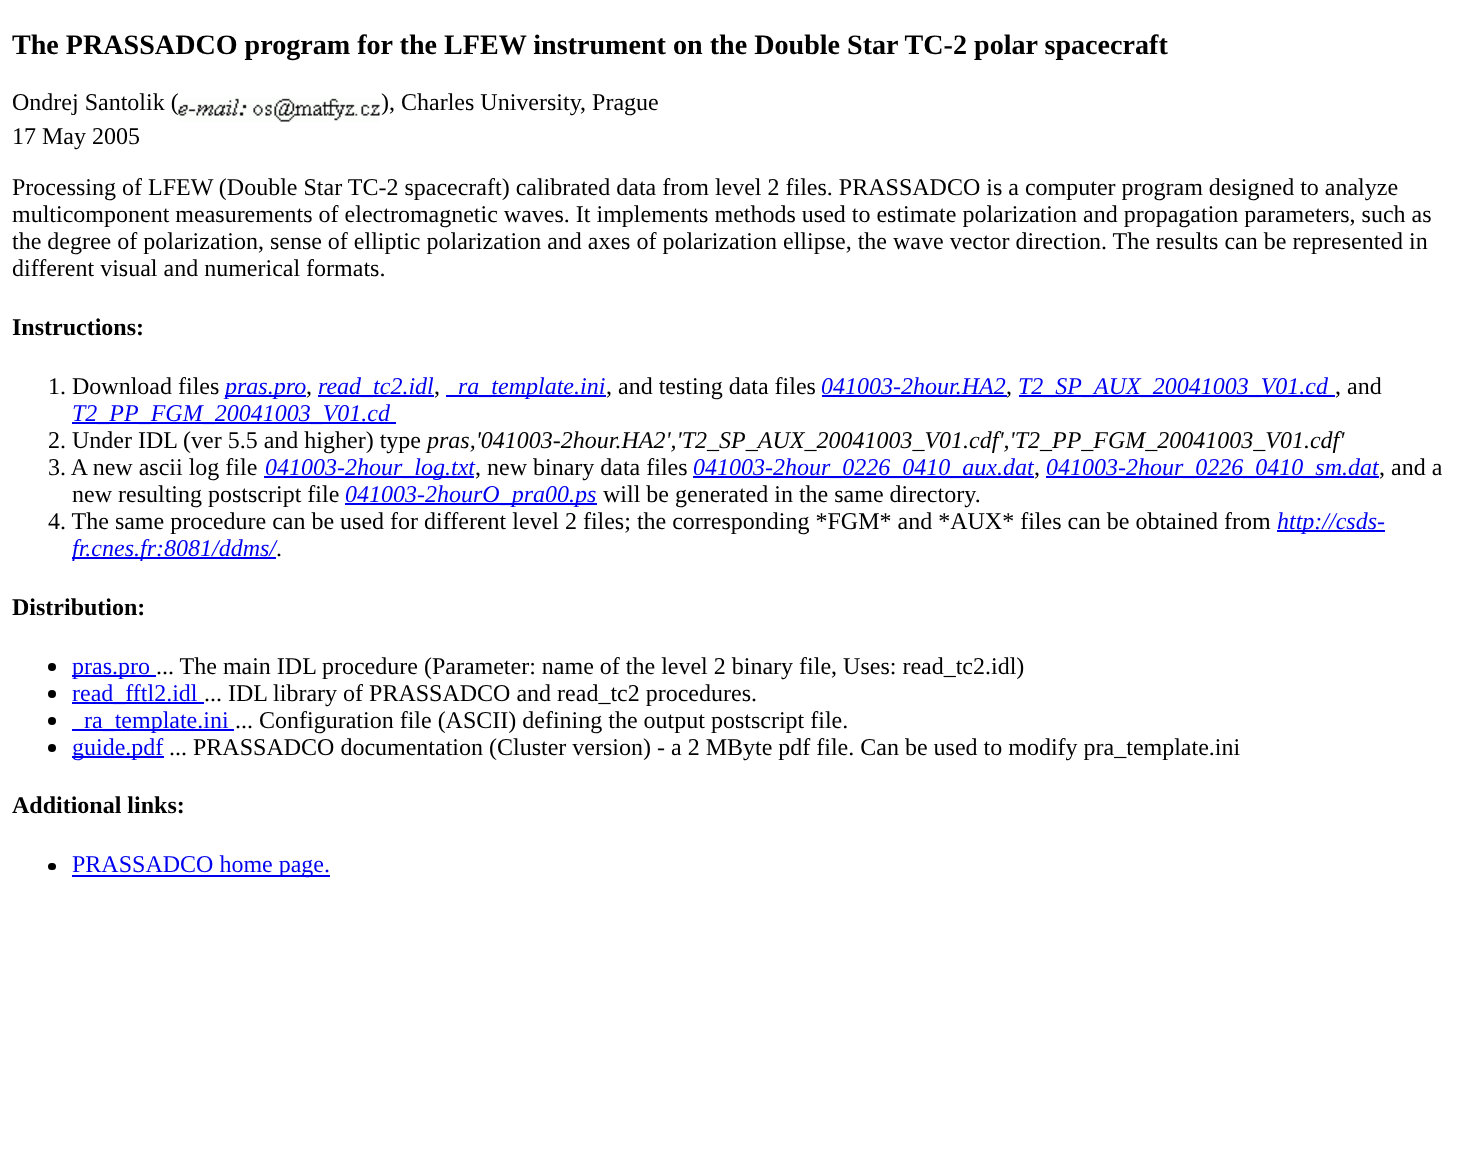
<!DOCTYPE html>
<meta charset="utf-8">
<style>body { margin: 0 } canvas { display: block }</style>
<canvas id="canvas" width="1475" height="1156"></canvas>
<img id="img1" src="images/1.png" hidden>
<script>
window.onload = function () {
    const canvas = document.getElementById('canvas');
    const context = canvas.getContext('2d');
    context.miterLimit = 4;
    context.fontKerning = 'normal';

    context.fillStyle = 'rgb(255, 255, 255)';
    context.fillRect(0, 0, 1475, 1156);
    context.drawImage(document.getElementById('img1'), 178, 98, 202, 24);
    context.fillStyle = 'rgb(0, 0, 238)';
    context.fillRect(225, 395, 81, 2);
    context.fillRect(318, 395, 116, 2);
    context.fillRect(446, 395, 160, 2);
    context.fillRect(822, 395, 185, 2);
    context.fillRect(1019, 395, 316, 2);
    context.fillRect(72, 422, 324, 2);
    context.fillRect(264, 476, 210, 2);
    context.fillRect(693, 476, 341, 2);
    context.fillRect(1046, 476, 333, 2);
    context.fillRect(345, 503, 252, 2);
    context.fillRect(1277, 530, 108, 2);
    context.fillRect(72, 557, 204, 2);
    context.fillStyle = 'rgb(0, 0, 0)';
    context.beginPath();
    context.arc(52, 667, 4, 0, 2 * Math.PI);
    context.fill();
    context.fillStyle = 'rgb(0, 0, 238)';
    context.fillRect(72, 675, 84, 2);
    context.fillStyle = 'rgb(0, 0, 0)';
    context.beginPath();
    context.arc(52, 694, 4, 0, 2 * Math.PI);
    context.fill();
    context.fillStyle = 'rgb(0, 0, 238)';
    context.fillRect(72, 702, 132, 2);
    context.fillStyle = 'rgb(0, 0, 0)';
    context.beginPath();
    context.arc(52, 721, 4, 0, 2 * Math.PI);
    context.fill();
    context.fillStyle = 'rgb(0, 0, 238)';
    context.fillRect(72, 729, 162, 2);
    context.fillStyle = 'rgb(0, 0, 0)';
    context.beginPath();
    context.arc(52, 748, 4, 0, 2 * Math.PI);
    context.fill();
    context.fillStyle = 'rgb(0, 0, 238)';
    context.fillRect(72, 756, 92, 2);
    context.fillStyle = 'rgb(0, 0, 0)';
    context.beginPath();
    context.roundRect(48, 863, 8, 7, 3.5);
    context.fill();
    context.fillStyle = 'rgb(0, 0, 238)';
    context.fillRect(72, 875, 258, 2);
    context.font = 'bold 28.1px Liberation Serif';
    context.fillStyle = 'rgb(0, 0, 0)';
    context.fillText('The PRASSADCO program for the LFEW instrument on the Double Star TC-2 polar spacecraft', 12, 54);
    context.font = '24px Liberation Serif';
    context.fillText('Ondrej Santolik (', 12, 110);
    context.fillText('), Charles University, Prague', 381, 110);
    context.fillText('17 May 2005', 12, 144);
    context.fillText('Processing of LFEW (Double Star TC-2 spacecraft) calibrated data from level 2 files. PRASSADCO is a computer program designed to analyze', 12, 195);
    context.fillText('multicomponent measurements of electromagnetic waves. It implements methods used to estimate polarization and propagation parameters, such as', 12, 222);
    context.fillText('the degree of polarization, sense of elliptic polarization and axes of polarization ellipse, the wave vector direction. The results can be represented in', 12, 249);
    context.fillText('different visual and numerical formats.', 12, 276);
    context.font = 'bold 24px Liberation Serif';
    context.fillText('Instructions:', 12, 335);
    context.font = '24px Liberation Serif';
    context.fillText('1. Download files', 48, 394);
    context.font = 'italic 24px Liberation Serif';
    context.fillStyle = 'rgb(0, 0, 238)';
    context.fillText('pras.pro', 225, 394);
    context.font = '24px Liberation Serif';
    context.fillStyle = 'rgb(0, 0, 0)';
    context.fillText(',', 306, 394);
    context.font = 'italic 24px Liberation Serif';
    context.fillStyle = 'rgb(0, 0, 238)';
    context.fillText('read_tc2.idl', 318, 394);
    context.font = '24px Liberation Serif';
    context.fillStyle = 'rgb(0, 0, 0)';
    context.fillText(',', 434, 394);
    context.font = 'italic 24px Liberation Serif';
    context.fillStyle = 'rgb(0, 0, 238)';
    context.fillText('ra_template.ini', 458, 394);
    context.font = '24px Liberation Serif';
    context.fillStyle = 'rgb(0, 0, 0)';
    context.fillText(', and testing data files', 606, 394);
    context.font = 'italic 24px Liberation Serif';
    context.fillStyle = 'rgb(0, 0, 238)';
    context.fillText('041003-2hour.HA2', 821, 394);
    context.font = '24px Liberation Serif';
    context.fillStyle = 'rgb(0, 0, 0)';
    context.fillText(',', 1006, 394);
    context.font = 'italic 24px Liberation Serif';
    context.fillStyle = 'rgb(0, 0, 238)';
    context.fillText('T2_SP_AUX_20041003_V01.cd', 1018, 394);
    context.font = '24px Liberation Serif';
    context.fillStyle = 'rgb(0, 0, 0)';
    context.fillText(', and', 1335, 394);
    context.font = 'italic 24px Liberation Serif';
    context.fillStyle = 'rgb(0, 0, 238)';
    context.fillText('T2_PP_FGM_20041003_V01.cd', 72, 421);
    context.font = '24px Liberation Serif';
    context.fillStyle = 'rgb(0, 0, 0)';
    context.fillText('2. Under IDL (ver 5.5 and higher) type', 48, 448);
    context.font = 'italic 24px Liberation Serif';
    context.fillText('pras,\'041003-2hour.HA2\',\'T2_SP_AUX_20041003_V01.cdf\',\'T2_PP_FGM_20041003_V01.cdf\'', 427, 448);
    context.font = '24px Liberation Serif';
    context.fillText('3. A new ascii log file', 48, 475);
    context.font = 'italic 24px Liberation Serif';
    context.fillStyle = 'rgb(0, 0, 238)';
    context.fillText('041003-2hour_log.txt', 265, 475);
    context.font = '24px Liberation Serif';
    context.fillStyle = 'rgb(0, 0, 0)';
    context.fillText(', new binary data files', 475, 475);
    context.font = 'italic 24px Liberation Serif';
    context.fillStyle = 'rgb(0, 0, 238)';
    context.fillText('041003-2hour_0226_0410_aux.dat', 693, 475);
    context.font = '24px Liberation Serif';
    context.fillStyle = 'rgb(0, 0, 0)';
    context.fillText(',', 1034, 475);
    context.font = 'italic 24px Liberation Serif';
    context.fillStyle = 'rgb(0, 0, 238)';
    context.fillText('041003-2hour_0226_0410_sm.dat', 1046, 475);
    context.font = '24px Liberation Serif';
    context.fillStyle = 'rgb(0, 0, 0)';
    context.fillText(', and a', 1379, 475);
    context.fillText('new resulting postscript file', 72, 502);
    context.font = 'italic 24px Liberation Serif';
    context.fillStyle = 'rgb(0, 0, 238)';
    context.fillText('041003-2hourO_pra00.ps', 345, 502);
    context.font = '24px Liberation Serif';
    context.fillStyle = 'rgb(0, 0, 0)';
    context.fillText('will be generated in the same directory.', 603, 502);
    context.fillText('4. The same procedure can be used for different level 2 files; the corresponding *FGM* and *AUX* files can be obtained from', 48, 529);
    context.font = 'italic 24px Liberation Serif';
    context.fillStyle = 'rgb(0, 0, 238)';
    context.fillText('http://csds-', 1277, 529);
    context.fillText('fr.cnes.fr:8081/ddms/', 72, 556);
    context.font = '24px Liberation Serif';
    context.fillStyle = 'rgb(0, 0, 0)';
    context.fillText('.', 276, 556);
    context.font = 'bold 24px Liberation Serif';
    context.fillText('Distribution:', 12, 615);
    context.font = '24px Liberation Serif';
    context.fillStyle = 'rgb(0, 0, 238)';
    context.fillText('pras.pro', 72, 674);
    context.fillStyle = 'rgb(0, 0, 0)';
    context.fillText('... The main IDL procedure (Parameter: name of the level 2 binary file, Uses: read_tc2.idl)', 156, 674);
    context.fillStyle = 'rgb(0, 0, 238)';
    context.fillText('read_fftl2.idl', 72, 701);
    context.fillStyle = 'rgb(0, 0, 0)';
    context.fillText('... IDL library of PRASSADCO and read_tc2 procedures.', 204, 701);
    context.fillStyle = 'rgb(0, 0, 238)';
    context.fillText('ra_template.ini', 84, 728);
    context.fillStyle = 'rgb(0, 0, 0)';
    context.fillText('... Configuration file (ASCII) defining the output postscript file.', 235, 728);
    context.fillStyle = 'rgb(0, 0, 238)';
    context.fillText('guide.pdf', 72, 755);
    context.fillStyle = 'rgb(0, 0, 0)';
    context.fillText('... PRASSADCO documentation (Cluster version) - a 2 MByte pdf file. Can be used to modify pra_template.ini', 169, 755);
    context.font = 'bold 24px Liberation Serif';
    context.fillText('Additional links:', 12, 813);
    context.font = '24px Liberation Serif';
    context.fillStyle = 'rgb(0, 0, 238)';
    context.fillText('PRASSADCO home page.', 72, 872);
};
</script>
